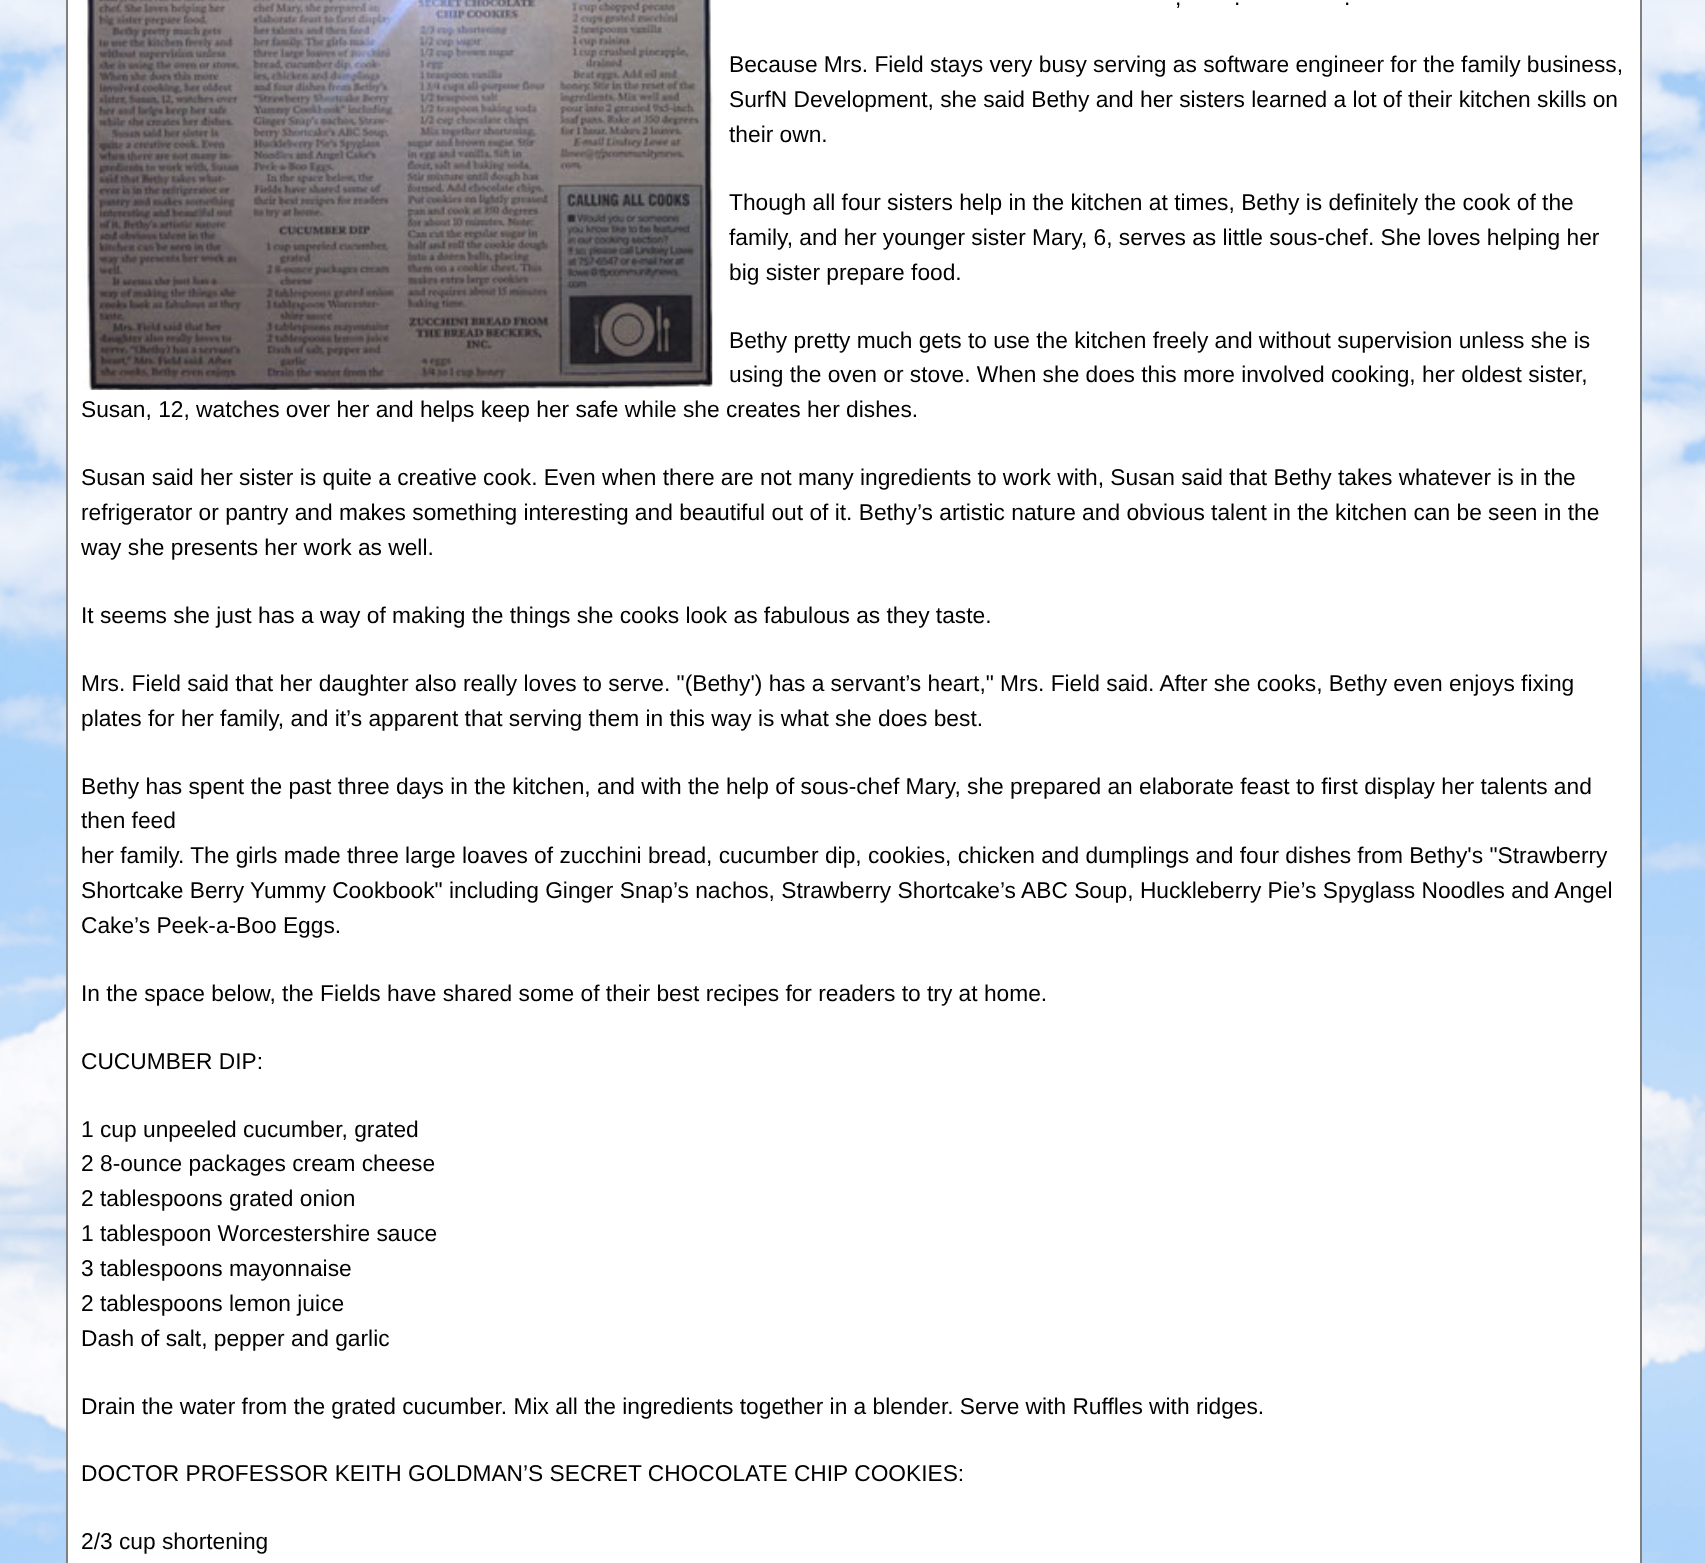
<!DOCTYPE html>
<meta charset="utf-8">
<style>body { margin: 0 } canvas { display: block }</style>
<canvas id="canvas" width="1705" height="1563"></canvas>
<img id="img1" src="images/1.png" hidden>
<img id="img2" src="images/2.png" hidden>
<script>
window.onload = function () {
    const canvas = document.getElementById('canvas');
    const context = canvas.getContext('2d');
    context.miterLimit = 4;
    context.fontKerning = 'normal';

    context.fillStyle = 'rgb(255, 255, 255)';
    context.fillRect(0, 0, 1705, 1563);
    context.drawImage(document.getElementById('img1'), 0, 0, 1705, 1563);
    context.fillStyle = 'rgb(128, 128, 128)';
    context.beginPath();
    context.moveTo(66, -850);
    context.lineTo(1642, -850);
    context.lineTo(1642, 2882);
    context.bezierCurveTo(1642, 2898, 1629, 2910, 1614, 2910);
    context.lineTo(94, 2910);
    context.bezierCurveTo(79, 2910, 66, 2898, 66, 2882);
    context.closePath();
    context.moveTo(68, -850);
    context.lineTo(1640, -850);
    context.lineTo(1640, 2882);
    context.bezierCurveTo(1640, 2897, 1628, 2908, 1614, 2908);
    context.lineTo(94, 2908);
    context.bezierCurveTo(80, 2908, 68, 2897, 68, 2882);
    context.closePath();
    context.fill('evenodd');
    context.fillStyle = 'rgb(255, 255, 255)';
    context.fillRect(68, 0, 1572, 1563);
    context.drawImage(document.getElementById('img2'), 82, 0, 631, 390);
    context.font = '22.75px Liberation Sans';
    context.fillStyle = 'rgb(0, 0, 0)';
    context.fillText(',', 1175, 5);
    context.fillText('.', 1234, 5);
    context.fillText('.', 1344, 5);
    context.fillText('Because Mrs. Field stays very busy serving as software engineer for the family business,', 729, 72);
    context.fillText('SurfN Development, she said Bethy and her sisters learned a lot of their kitchen skills on', 729, 107);
    context.fillText('their own.', 729, 142);
    context.fillText('Though all four sisters help in the kitchen at times, Bethy is definitely the cook of the', 729, 210);
    context.fillText('family, and her younger sister Mary, 6, serves as little sous-chef. She loves helping her', 729, 245);
    context.fillText('big sister prepare food.', 729, 280);
    context.fillText('Bethy pretty much gets to use the kitchen freely and without supervision unless she is', 729, 348);
    context.fillText('using the oven or stove. When she does this more involved cooking, her oldest sister,', 729, 382);
    context.fillText('Susan, 12, watches over her and helps keep her safe while she creates her dishes.', 81, 417);
    context.fillText('Susan said her sister is quite a creative cook. Even when there are not many ingredients to work with, Susan said that Bethy takes whatever is in the', 81, 485);
    context.fillText('refrigerator or pantry and makes something interesting and beautiful out of it. Bethy’s artistic nature and obvious talent in the kitchen can be seen in the', 81, 520);
    context.fillText('way she presents her work as well.', 81, 555);
    context.fillText('It seems she just has a way of making the things she cooks look as fabulous as they taste.', 81, 623);
    context.fillText('Mrs. Field said that her daughter also really loves to serve. "(Bethy\') has a servant’s heart," Mrs. Field said. After she cooks, Bethy even enjoys fixing', 81, 691);
    context.fillText('plates for her family, and it’s apparent that serving them in this way is what she does best.', 81, 726);
    context.fillText('Bethy has spent the past three days in the kitchen, and with the help of sous-chef Mary, she prepared an elaborate feast to first display her talents and', 81, 794);
    context.fillText('then feed', 81, 828);
    context.fillText('her family. The girls made three large loaves of zucchini bread, cucumber dip, cookies, chicken and dumplings and four dishes from Bethy\'s "Strawberry', 81, 863);
    context.fillText('Shortcake Berry Yummy Cookbook" including Ginger Snap’s nachos, Strawberry Shortcake’s ABC Soup, Huckleberry Pie’s Spyglass Noodles and Angel', 81, 898);
    context.fillText('Cake’s Peek-a-Boo Eggs.', 81, 933);
    context.fillText('In the space below, the Fields have shared some of their best recipes for readers to try at home.', 81, 1001);
    context.fillText('CUCUMBER DIP:', 81, 1069);
    context.fillText('1 cup unpeeled cucumber, grated', 81, 1137);
    context.fillText('2 8-ounce packages cream cheese', 81, 1171);
    context.fillText('2 tablespoons grated onion', 81, 1206);
    context.fillText('1 tablespoon Worcestershire sauce', 81, 1241);
    context.fillText('3 tablespoons mayonnaise', 81, 1276);
    context.fillText('2 tablespoons lemon juice', 81, 1311);
    context.fillText('Dash of salt, pepper and garlic', 81, 1346);
    context.fillText('Drain the water from the grated cucumber. Mix all the ingredients together in a blender. Serve with Ruffles with ridges.', 81, 1414);
    context.fillText('DOCTOR PROFESSOR KEITH GOLDMAN’S SECRET CHOCOLATE CHIP COOKIES:', 81, 1481);
    context.fillText('2/3 cup shortening', 81, 1549);
};
</script>
